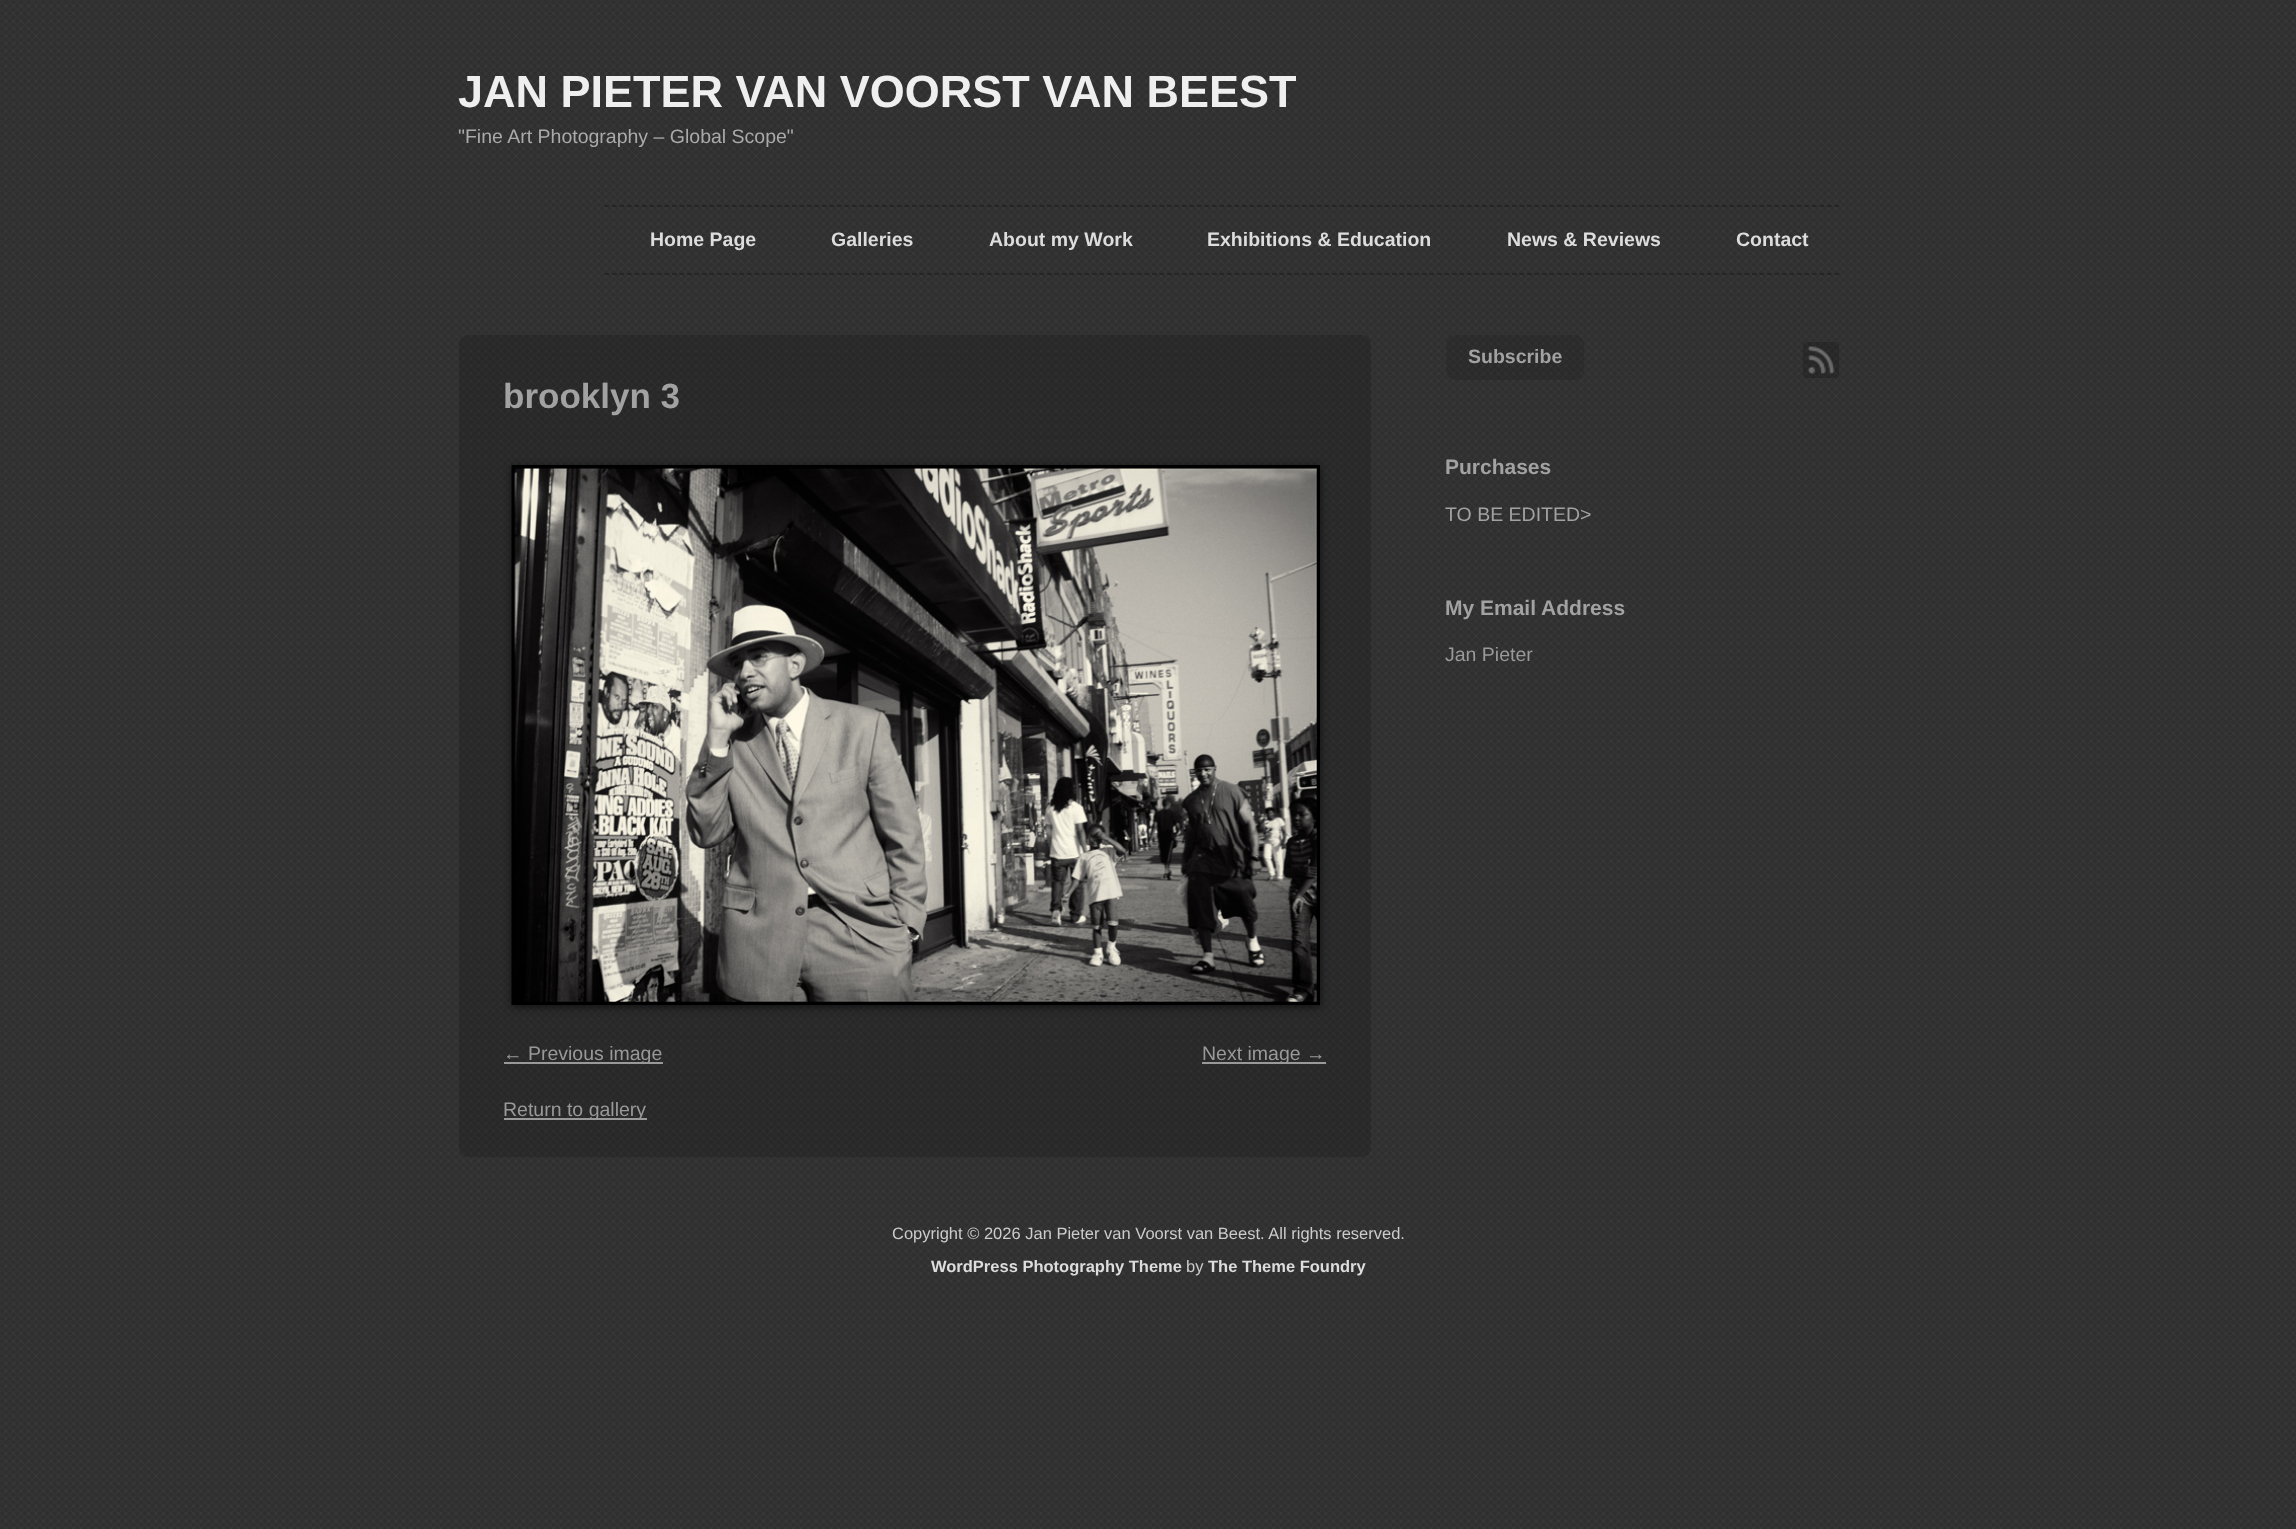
<!DOCTYPE html>
<meta charset="utf-8">
<style>body { margin: 0 } canvas { display: block }</style>
<canvas id="canvas" width="2296" height="1529"></canvas>
<img id="img1" src="images/1.png" hidden>
<img id="img2" src="images/2.png" hidden>
<img id="img3" src="images/3.png" hidden>
<script>
window.onload = function () {
    const canvas = document.getElementById('canvas');
    const context = canvas.getContext('2d');
    context.miterLimit = 4;
    context.fontKerning = 'normal';

    context.fillStyle = 'rgb(255, 255, 255)';
    context.fillRect(0, 0, 2296, 1529);
    context.drawImage(document.getElementById('img1'), 0, 0, 2296, 1529);
    context.beginPath();
    context.moveTo(604.5, 206);
    context.lineTo(1839, 206);
    context.strokeStyle = 'rgb(34, 34, 34)';
    context.lineWidth = 1.5;
    context.setLineDash([4.5, 3]);
    context.stroke();
    context.beginPath();
    context.moveTo(604.5, 274);
    context.lineTo(1839, 274);
    context.stroke();
    context.fillStyle = 'rgba(0, 0, 0, 0.15)';
    context.beginPath();
    context.roundRect(459, 335, 912, 822, 9);
    context.fill();
    context.fillStyle = 'rgba(0, 0, 0, 0.6)';
    context.filter = 'blur(4.5px)';
    context.beginPath();
    context.rect(512, 467, 808, 540);
    context.fill();
    context.filter = 'none';
    context.drawImage(document.getElementById('img2'), 511, 465, 809, 540);
    context.fillStyle = 'rgb(153, 153, 153)';
    context.fillRect(504, 1062, 159, 2);
    context.fillRect(1202, 1062, 124, 2);
    context.fillRect(504, 1118, 143, 2);
    context.fillStyle = 'rgba(0, 0, 0, 0.1)';
    context.beginPath();
    context.roundRect(1446, 335, 138, 45, 9);
    context.fill();
    context.drawImage(document.getElementById('img3'), 1803, 342, 36, 36);
    context.font = 'bold 45px Liberation Sans';
    context.fillStyle = 'rgb(239, 239, 239)';
    context.fillText('JAN PIETER VAN VOORST VAN BEEST', 458, 107);
    context.font = '19.5px Liberation Sans';
    context.fillStyle = 'rgb(170, 170, 170)';
    context.fillText('"Fine Art Photography – Global Scope"', 458, 143);
    context.font = 'bold 19.5px Liberation Sans';
    context.fillStyle = 'rgb(221, 221, 221)';
    context.fillText('Home Page', 650, 246);
    context.fillText('Galleries', 831, 246);
    context.fillText('About my Work', 989, 246);
    context.fillText('Exhibitions & Education', 1207, 246);
    context.fillText('News & Reviews', 1507, 246);
    context.fillText('Contact', 1736, 246);
    context.font = 'bold 35px Liberation Sans';
    context.fillStyle = 'rgb(162, 162, 162)';
    context.fillText('brooklyn 3', 503, 408);
    context.font = '19.5px Liberation Sans';
    context.fillStyle = 'rgb(153, 153, 153)';
    context.fillText('← Previous image', 503, 1060);
    context.fillText('Next image →', 1202, 1060);
    context.fillText('Return to gallery', 503, 1116);
    context.font = 'bold 19.5px Liberation Sans';
    context.fillStyle = 'rgb(162, 162, 162)';
    context.fillText('Subscribe', 1468, 363);
    context.font = 'bold 21px Liberation Sans';
    context.fillText('Purchases', 1445, 474);
    context.font = '19.5px Liberation Sans';
    context.fillText('TO BE EDITED>', 1445, 521);
    context.font = 'bold 21px Liberation Sans';
    context.fillText('My Email Address', 1445, 615);
    context.font = '19.5px Liberation Sans';
    context.fillStyle = 'rgb(153, 153, 153)';
    context.fillText('Jan Pieter', 1445, 661);
    context.font = '16.5px Liberation Sans';
    context.fillStyle = 'rgb(204, 204, 204)';
    context.fillText('Copyright © 2026 Jan Pieter van Voorst van Beest. All rights reserved.', 892, 1239);
    context.font = 'bold 16.5px Liberation Sans';
    context.fillStyle = 'rgb(221, 221, 221)';
    context.fillText('WordPress Photography Theme', 931, 1272);
    context.font = '16.5px Liberation Sans';
    context.fillStyle = 'rgb(204, 204, 204)';
    context.fillText('by', 1186, 1272);
    context.font = 'bold 16.5px Liberation Sans';
    context.fillStyle = 'rgb(221, 221, 221)';
    context.fillText('The Theme Foundry', 1208, 1272);
};
</script>
